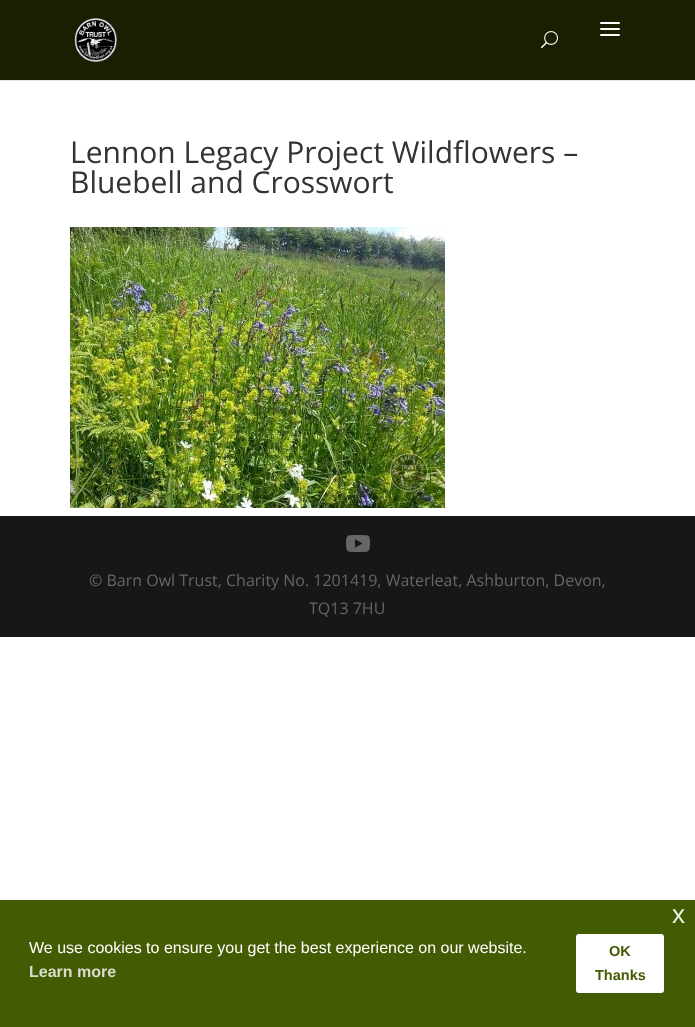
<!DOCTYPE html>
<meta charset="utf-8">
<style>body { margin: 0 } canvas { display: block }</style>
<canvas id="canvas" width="695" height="1027"></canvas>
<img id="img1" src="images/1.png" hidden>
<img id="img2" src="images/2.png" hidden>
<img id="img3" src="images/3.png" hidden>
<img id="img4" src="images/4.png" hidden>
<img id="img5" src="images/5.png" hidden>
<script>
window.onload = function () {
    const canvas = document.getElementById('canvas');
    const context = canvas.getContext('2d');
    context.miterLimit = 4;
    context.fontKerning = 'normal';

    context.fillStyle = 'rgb(255, 255, 255)';
    context.fillRect(0, 0, 695, 1027);
    context.fillStyle = 'rgb(230, 230, 230)';
    context.fillRect(0, 80, 695, 1);
    context.fillStyle = 'rgb(27, 30, 0)';
    context.fillRect(0, 0, 695, 80);
    context.drawImage(document.getElementById('img1'), 74, 18, 43, 44);
    context.drawImage(document.getElementById('img2'), 600, 22, 20, 14);
    context.drawImage(document.getElementById('img3'), 541, 31, 17, 18);
    context.drawImage(document.getElementById('img4'), 70, 227, 375, 281);
    context.fillStyle = 'rgb(23, 23, 23)';
    context.fillRect(0, 516, 695, 121);
    context.drawImage(document.getElementById('img5'), 346, 535, 24, 17);
    context.fillStyle = 'rgb(67, 91, 2)';
    context.fillRect(0, 900, 695, 127);
    context.fillStyle = 'rgb(255, 255, 255)';
    context.beginPath();
    context.roundRect(575, 933, 90, 61, 4);
    context.fill();
    context.strokeStyle = 'rgb(67, 91, 2)';
    context.lineWidth = 2;
    context.stroke();
    context.font = '30px Open Sans';
    context.fillStyle = 'rgb(51, 51, 51)';
    context.fillText('Lennon Legacy Project Wildflowers –', 70, 163);
    context.fillText('Bluebell and Crosswort', 70, 193);
    context.font = '16px Open Sans';
    context.fillStyle = 'rgb(102, 102, 102)';
    context.fillText('© Barn Owl Trust, Charity No. 1201419, Waterleat, Ashburton, Devon,', 89, 586);
    context.fillText('TQ13 7HU', 309, 614);
    context.font = '26px Liberation Sans';
    context.fillStyle = 'rgb(236, 239, 230)';
    context.fillText('x', 672, 923);
    context.font = '16px Liberation Sans';
    context.fillStyle = 'rgb(255, 255, 255)';
    context.fillText('We use cookies to ensure you get the best experience on our website.', 29, 953);
    context.font = 'bold 16px Liberation Sans';
    context.fillStyle = 'rgb(217, 222, 204)';
    context.fillText('Learn more', 29, 977);
    context.font = 'bold 14.5px Liberation Sans';
    context.fillStyle = 'rgb(67, 91, 2)';
    context.fillText('OK', 609, 956);
    context.fillText('Thanks', 595, 980);
};
</script>
